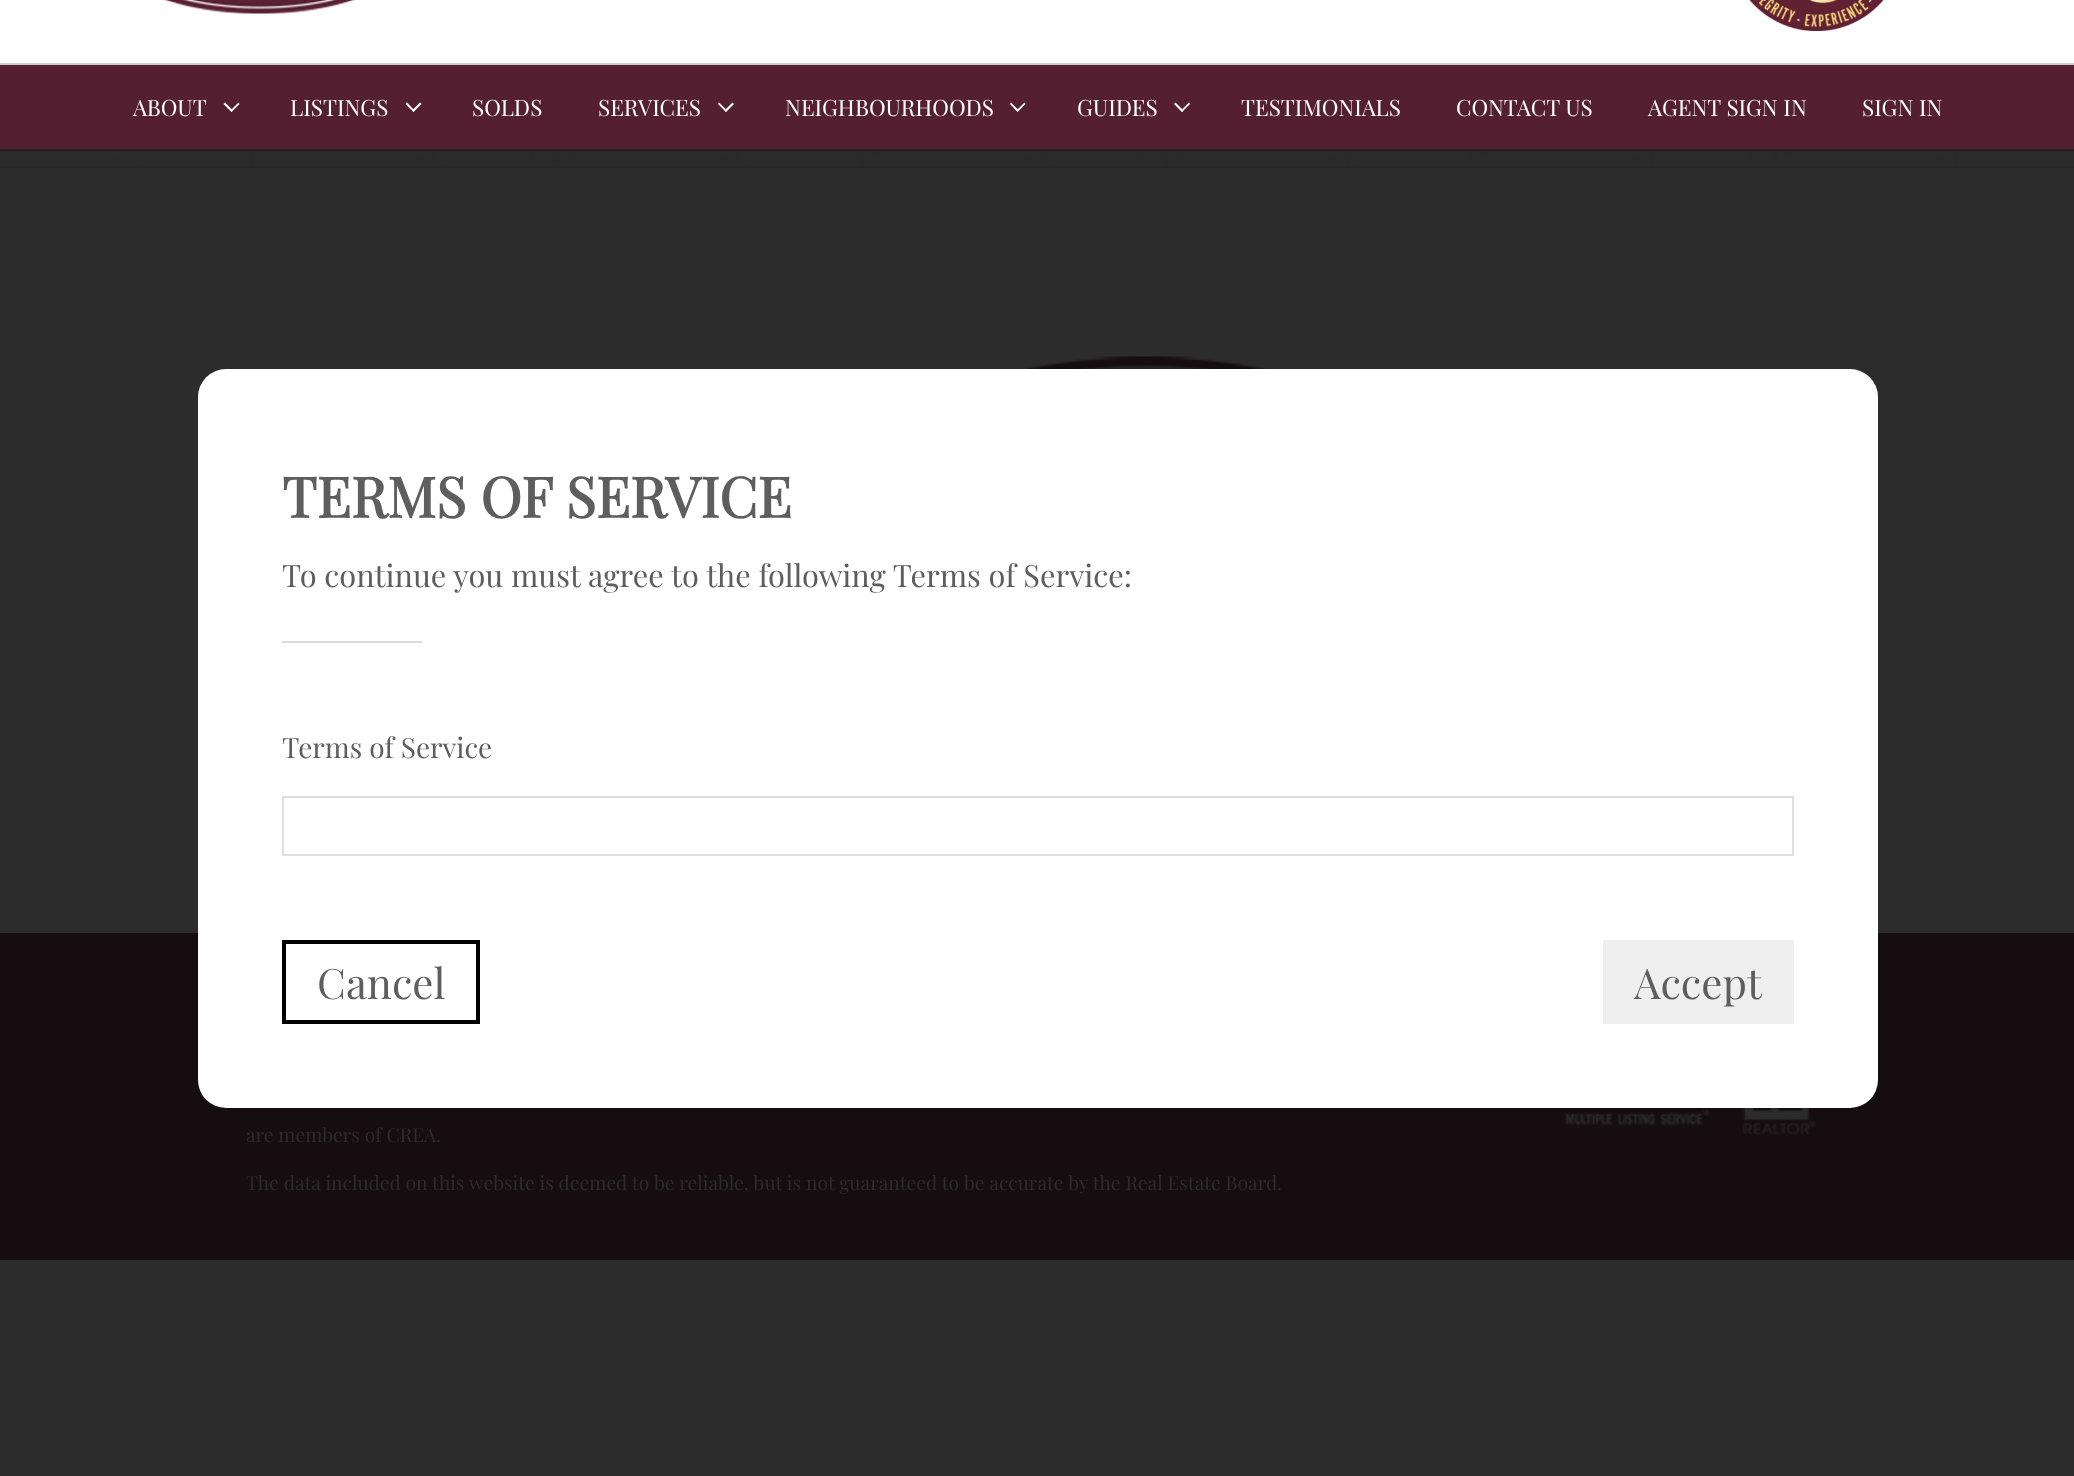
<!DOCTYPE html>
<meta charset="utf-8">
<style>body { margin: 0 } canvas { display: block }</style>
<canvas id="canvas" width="2074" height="1476"></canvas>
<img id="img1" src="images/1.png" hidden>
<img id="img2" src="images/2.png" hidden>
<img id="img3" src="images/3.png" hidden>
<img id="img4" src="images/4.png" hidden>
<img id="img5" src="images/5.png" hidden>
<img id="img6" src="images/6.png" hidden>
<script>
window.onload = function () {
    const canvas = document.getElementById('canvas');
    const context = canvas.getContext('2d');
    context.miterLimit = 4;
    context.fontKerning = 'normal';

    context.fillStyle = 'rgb(44, 44, 44)';
    context.fillRect(0, 0, 2074, 1476);
    context.fillStyle = 'rgb(34, 34, 34)';
    context.beginPath();
    context.moveTo(0, 149);
    context.lineTo(0, 151);
    context.lineTo(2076, 151);
    context.lineTo(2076, -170);
    context.lineTo(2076, 149);
    context.closePath();
    context.fill();
    context.fillStyle = 'rgb(255, 255, 255)';
    context.fillRect(0, 0, 2074, 63);
    context.fillStyle = 'rgb(204, 204, 204)';
    context.fillRect(0, 63, 2074, 2);
    context.drawImage(document.getElementById('img1'), 163, 0, 193, 14);
    context.drawImage(document.getElementById('img2'), 1749, 0, 135, 31);
    context.fillStyle = 'rgb(85, 31, 50)';
    context.fillRect(0, 65, 2074, 84);
    context.fillStyle = 'rgb(255, 255, 255)';
    context.beginPath();
    context.moveTo(230.5, 110.5);
    context.lineTo(238.5, 102.5);
    context.lineTo(239.5, 104);
    context.lineTo(231.5, 112);
    context.closePath();
    context.fill();
    context.beginPath();
    context.moveTo(223.5, 104);
    context.lineTo(225, 102.5);
    context.lineTo(233, 110.5);
    context.lineTo(231.5, 112);
    context.closePath();
    context.fill();
    context.beginPath();
    context.moveTo(412, 110.5);
    context.lineTo(420, 102.5);
    context.lineTo(421.5, 104);
    context.lineTo(413.5, 112);
    context.closePath();
    context.fill();
    context.beginPath();
    context.moveTo(405.5, 104);
    context.lineTo(407, 102.5);
    context.lineTo(414.5, 110.5);
    context.lineTo(413.5, 112);
    context.closePath();
    context.fill();
    context.beginPath();
    context.moveTo(724.5, 110.5);
    context.lineTo(732.5, 102.5);
    context.lineTo(734, 104);
    context.lineTo(726, 112);
    context.closePath();
    context.fill();
    context.beginPath();
    context.moveTo(718, 104);
    context.lineTo(719, 102.5);
    context.lineTo(727, 110.5);
    context.lineTo(726, 112);
    context.closePath();
    context.fill();
    context.beginPath();
    context.moveTo(1016.5, 110.5);
    context.lineTo(1024.5, 102.5);
    context.lineTo(1025.5, 104);
    context.lineTo(1017.5, 112);
    context.closePath();
    context.fill();
    context.beginPath();
    context.moveTo(1010, 104);
    context.lineTo(1011, 102.5);
    context.lineTo(1019, 110.5);
    context.lineTo(1017.5, 112);
    context.closePath();
    context.fill();
    context.beginPath();
    context.moveTo(1181, 110.5);
    context.lineTo(1189, 102.5);
    context.lineTo(1190, 104);
    context.lineTo(1182, 112);
    context.closePath();
    context.fill();
    context.beginPath();
    context.moveTo(1174, 104);
    context.lineTo(1175.5, 102.5);
    context.lineTo(1183.5, 110.5);
    context.lineTo(1182, 112);
    context.closePath();
    context.fill();
    context.fillStyle = 'rgb(39, 39, 39)';
    context.fillRect(0, 166, 2074, 2);
    context.drawImage(document.getElementById('img3'), 0, 151, 2074, 15);
    context.fillStyle = 'rgb(21, 13, 16)';
    context.fillRect(0, 933, 2074, 327);
    context.fillStyle = 'rgb(255, 255, 255)';
    context.beginPath();
    context.roundRect(198, 369, 1680, 739, 28);
    context.fill();
    context.fillStyle = 'rgb(219, 219, 219)';
    context.fillRect(282, 641, 140, 2);
    context.strokeStyle = 'rgb(222, 222, 222)';
    context.lineWidth = 2;
    context.strokeRect(283, 797, 1510, 58);
    context.strokeStyle = 'rgb(0, 0, 0)';
    context.lineWidth = 4;
    context.strokeRect(284, 942, 194, 80);
    context.fillStyle = 'rgb(239, 239, 239)';
    context.fillRect(1603, 940, 191, 84);
    context.drawImage(document.getElementById('img4'), 1018, 356, 255, 13);
    context.drawImage(document.getElementById('img5'), 1564, 1108, 147, 18);
    context.drawImage(document.getElementById('img6'), 1742, 1108, 75, 28);
    context.font = '22.5px Playfair Display';
    context.fillStyle = 'rgb(255, 255, 255)';
    context.fillText('ABOUT', 133, 116);
    context.fillText('LISTINGS', 290, 116);
    context.fillText('SOLDS', 472, 116);
    context.fillText('SERVICES', 598, 116);
    context.fillText('NEIGHBOURHOODS', 785, 116);
    context.fillText('GUIDES', 1077, 116);
    context.fillText('TESTIMONIALS', 1241, 116);
    context.fillText('CONTACT US', 1456, 116);
    context.fillText('AGENT SIGN IN', 1648, 116);
    context.fillText('SIGN IN', 1862, 116);
    context.font = 'bold 56px Playfair Display';
    context.fillStyle = 'rgb(94, 94, 94)';
    context.fillText('TERMS OF SERVICE', 282, 518);
    context.font = '30.8px Playfair Display';
    context.fillText('To continue you must agree to the following Terms of Service:', 282, 587);
    context.font = '28px Playfair Display';
    context.fillText('Terms of Service', 282, 758);
    context.font = '42px Playfair Display';
    context.fillText('Cancel', 317, 999);
    context.fillText('Accept', 1634, 999);
    context.font = '19.25px Playfair Display';
    context.fillStyle = 'rgb(44, 44, 44)';
    context.fillText('are members of CREA.', 246, 1142);
    context.fillText('The data included on this website is deemed to be reliable, but is not guaranteed to be accurate by the Real Estate Board.', 246, 1190);
};
</script>
